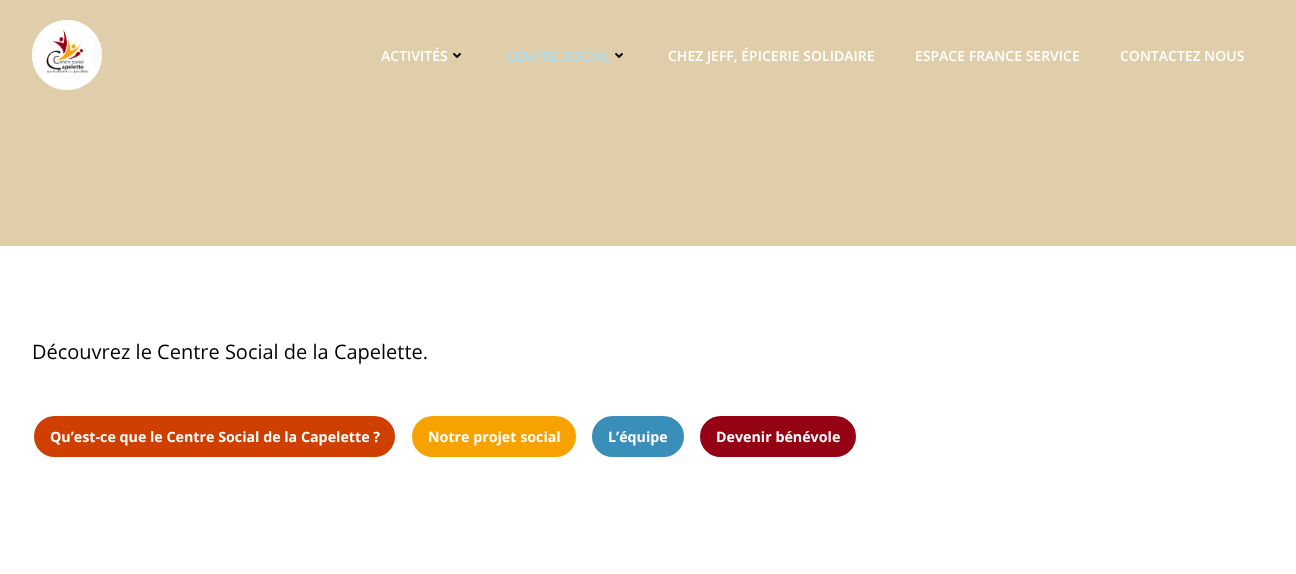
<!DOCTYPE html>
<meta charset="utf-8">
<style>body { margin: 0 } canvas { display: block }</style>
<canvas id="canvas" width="1296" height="574"></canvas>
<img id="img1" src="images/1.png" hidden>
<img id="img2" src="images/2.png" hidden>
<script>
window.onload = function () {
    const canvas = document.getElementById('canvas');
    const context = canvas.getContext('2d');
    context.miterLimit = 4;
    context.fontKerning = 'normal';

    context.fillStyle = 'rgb(255, 255, 255)';
    context.fillRect(0, 0, 1296, 574);
    context.fillStyle = 'rgb(224, 205, 169)';
    context.fillRect(0, 0, 1296, 246);
    context.drawImage(document.getElementById('img1'), 32, 20, 70, 70);
    context.drawImage(document.getElementById('img2'), 453, 53, 8, 5);
    context.drawImage(document.getElementById('img2'), 615, 53, 8, 5);
    context.fillStyle = 'rgb(207, 63, 0)';
    context.beginPath();
    context.roundRect(33, 415, 363, 43, 21.5);
    context.fill();
    context.strokeStyle = 'rgb(255, 255, 255)';
    context.lineWidth = 2;
    context.stroke();
    context.fillStyle = 'rgb(248, 162, 0)';
    context.beginPath();
    context.roundRect(411, 415, 166, 43, 21.5);
    context.fill();
    context.stroke();
    context.fillStyle = 'rgb(58, 142, 186)';
    context.beginPath();
    context.roundRect(591, 415, 94, 43, 21.5);
    context.fill();
    context.stroke();
    context.fillStyle = 'rgb(148, 2, 20)';
    context.beginPath();
    context.roundRect(699, 415, 158, 43, 21.5);
    context.fill();
    context.stroke();
    context.font = '600 14px Open Sans';
    context.fillStyle = 'rgb(255, 255, 255)';
    context.fillText('ACTIVITÉS', 381, 61);
    context.fillStyle = 'rgb(166, 220, 244)';
    context.fillText('CENTRE SOCIAL', 506, 61);
    context.fillStyle = 'rgb(255, 255, 255)';
    context.fillText('CHEZ JEFF, ÉPICERIE SOLIDAIRE', 668, 61);
    context.fillText('ESPACE FRANCE SERVICE', 915, 61);
    context.fillText('CONTACTEZ NOUS', 1120, 61);
    context.font = '20px Open Sans';
    context.fillStyle = 'rgb(0, 0, 0)';
    context.fillText('Découvrez le Centre Social de la Capelette.', 32, 359);
    context.font = 'bold 14.25px Open Sans';
    context.fillStyle = 'rgb(255, 255, 255)';
    context.fillText('Qu’est-ce que le Centre Social de la Capelette ?', 50, 442);
    context.fillText('Notre projet social', 428, 442);
    context.fillText('L’équipe', 608, 442);
    context.fillText('Devenir bénévole', 716, 442);
};
</script>
